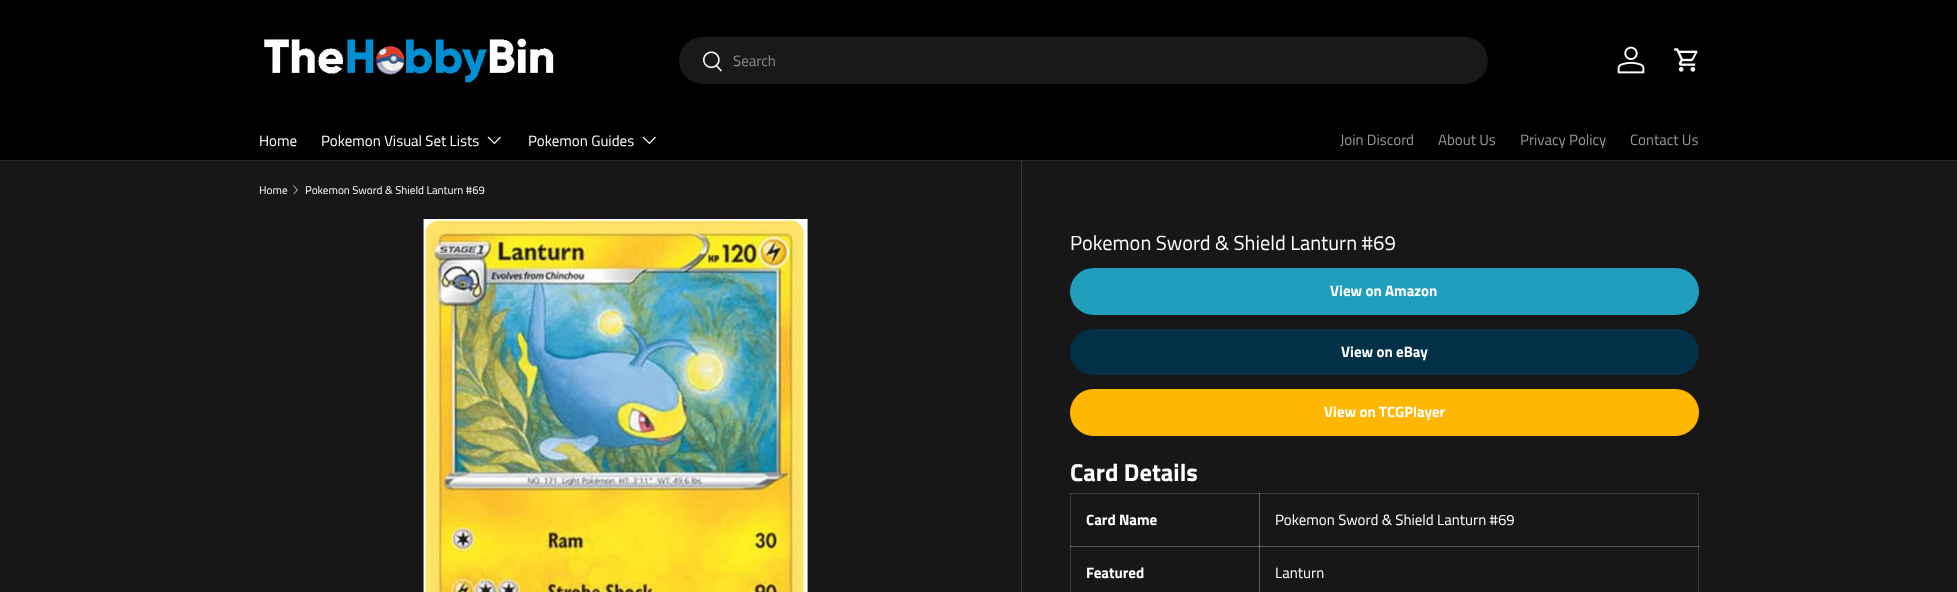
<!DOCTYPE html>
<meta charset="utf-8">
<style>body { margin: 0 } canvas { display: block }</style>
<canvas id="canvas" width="1957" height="592"></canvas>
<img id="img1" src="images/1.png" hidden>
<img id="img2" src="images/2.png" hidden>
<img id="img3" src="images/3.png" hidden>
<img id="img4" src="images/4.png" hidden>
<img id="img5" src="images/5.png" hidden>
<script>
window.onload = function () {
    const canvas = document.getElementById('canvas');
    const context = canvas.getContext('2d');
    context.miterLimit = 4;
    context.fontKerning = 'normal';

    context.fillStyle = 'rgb(23, 23, 23)';
    context.fillRect(0, 0, 1957, 592);
    context.fillStyle = 'rgb(58, 58, 58)';
    context.fillRect(1070, 493, 1, 99);
    context.fillRect(1070, 493, 190, 1);
    context.fillStyle = 'rgb(88, 88, 88)';
    context.fillRect(1070, 493, 1, 1);
    context.fillRect(1259, 493, 1, 54);
    context.fillStyle = 'rgb(58, 58, 58)';
    context.fillRect(1698, 493, 1, 99);
    context.fillStyle = 'rgb(88, 88, 88)';
    context.fillRect(1070, 546, 190, 1);
    context.fillStyle = 'rgb(134, 134, 134)';
    context.fillRect(1070, 546, 1, 1);
    context.fillStyle = 'rgb(88, 88, 88)';
    context.fillRect(1259, 546, 1, 46);
    context.fillStyle = 'rgb(0, 0, 0)';
    context.fillRect(0, 0, 1957, 160);
    context.fillStyle = 'rgb(38, 38, 38)';
    context.fillRect(0, 160, 1957, 1);
    context.drawImage(document.getElementById('img1'), 264, 38, 290, 45);
    context.fillStyle = 'rgb(25, 25, 25)';
    context.beginPath();
    context.roundRect(679, 37, 809, 47, 23.5);
    context.fill();
    context.drawImage(document.getElementById('img2'), 703, 51, 19, 21);
    context.drawImage(document.getElementById('img3'), 1617, 46, 28, 28);
    context.drawImage(document.getElementById('img4'), 1674, 48, 24, 24);
    context.beginPath();
    context.moveTo(500.5, 137);
    context.lineTo(494.5, 143.5);
    context.lineTo(488, 137);
    context.strokeStyle = 'rgb(255, 255, 255)';
    context.lineWidth = 1.2;
    context.stroke();
    context.beginPath();
    context.moveTo(655.5, 137);
    context.lineTo(649.5, 143.5);
    context.lineTo(643, 137);
    context.stroke();
    context.beginPath();
    context.moveTo(293.5, 185.5);
    context.lineTo(297.5, 190);
    context.lineTo(293.5, 194);
    context.lineWidth = 0.8;
    context.stroke();
    context.drawImage(document.getElementById('img5'), 423, 219, 385, 373);
    context.fillStyle = 'rgb(58, 58, 58)';
    context.fillRect(1021, 161, 1, 431);
    context.fillStyle = 'rgb(33, 158, 188)';
    context.beginPath();
    context.roundRect(1070, 268, 629, 47, 23.5);
    context.fill();
    context.fillStyle = 'rgb(2, 48, 71)';
    context.beginPath();
    context.roundRect(1070, 329, 629, 46, 23);
    context.fill();
    context.fillStyle = 'rgb(255, 183, 3)';
    context.beginPath();
    context.roundRect(1070, 389, 629, 47, 23.5);
    context.fill();
    context.fillStyle = 'rgb(58, 58, 58)';
    context.fillRect(1259, 493, 440, 1);
    context.fillStyle = 'rgb(134, 134, 134)';
    context.fillRect(1259, 493, 1, 1);
    context.fillStyle = 'rgb(88, 88, 88)';
    context.fillRect(1698, 493, 1, 1);
    context.fillRect(1259, 546, 440, 1);
    context.fillStyle = 'rgb(191, 191, 191)';
    context.fillRect(1259, 546, 1, 1);
    context.fillStyle = 'rgb(134, 134, 134)';
    context.fillRect(1698, 546, 1, 1);
    context.font = '15px Titillium Web';
    context.fillStyle = 'rgb(140, 140, 140)';
    context.fillText('Search', 733, 66);
    context.fillStyle = 'rgb(255, 255, 255)';
    context.fillText('Home', 259, 146);
    context.fillText('Pokemon Visual Set Lists', 321, 146);
    context.fillText('Pokemon Guides', 528, 146);
    context.fillStyle = 'rgb(153, 153, 153)';
    context.fillText('Join Discord', 1340, 145);
    context.fillText('About Us', 1438, 145);
    context.fillText('Privacy Policy', 1520, 145);
    context.fillText('Contact Us', 1630, 145);
    context.font = '11.25px Titillium Web';
    context.fillStyle = 'rgb(255, 255, 255)';
    context.fillText('Home', 259, 194);
    context.fillText('Pokemon Sword & Shield Lanturn #69', 305, 194);
    context.font = '20.4px Titillium Web';
    context.fillText('Pokemon Sword & Shield Lanturn #69', 1070, 250);
    context.font = 'bold 15px Titillium Web';
    context.fillText('View on Amazon', 1330, 296);
    context.fillText('View on eBay', 1341, 357);
    context.fillText('View on TCGPlayer', 1324, 417);
    context.font = 'bold 24.5px Titillium Web';
    context.fillText('Card Details', 1070, 481);
    context.font = 'bold 15px Titillium Web';
    context.fillText('Card Name', 1086, 525);
    context.font = '15px Titillium Web';
    context.fillText('Pokemon Sword & Shield Lanturn #69', 1275, 525);
    context.font = 'bold 15px Titillium Web';
    context.fillText('Featured', 1086, 578);
    context.font = '15px Titillium Web';
    context.fillText('Lanturn', 1275, 578);
};
</script>
